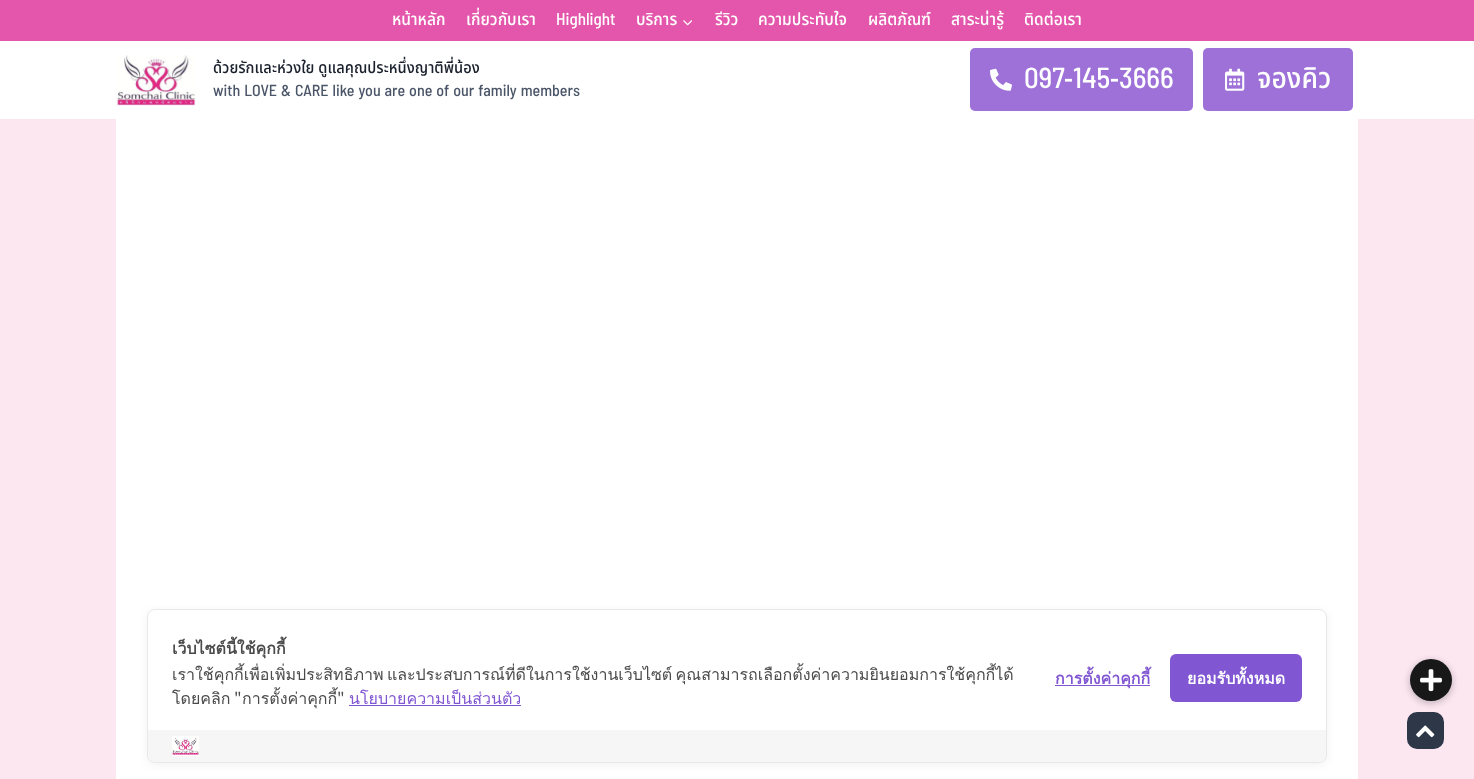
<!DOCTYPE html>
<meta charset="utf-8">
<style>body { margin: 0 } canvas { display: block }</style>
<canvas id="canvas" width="1474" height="779"></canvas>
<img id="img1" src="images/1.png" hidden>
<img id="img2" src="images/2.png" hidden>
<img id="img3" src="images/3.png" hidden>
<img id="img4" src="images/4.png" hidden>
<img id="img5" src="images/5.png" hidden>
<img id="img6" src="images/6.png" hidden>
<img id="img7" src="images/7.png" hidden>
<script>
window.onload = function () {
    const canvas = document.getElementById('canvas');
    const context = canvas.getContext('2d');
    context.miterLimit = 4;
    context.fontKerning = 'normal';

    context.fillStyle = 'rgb(252, 231, 241)';
    context.fillRect(0, 0, 1474, 779);
    context.fillStyle = 'rgb(255, 255, 255)';
    context.fillRect(0, 41, 1474, 78);
    context.fillStyle = 'rgb(228, 86, 171)';
    context.fillRect(0, 0, 1474, 41);
    context.drawImage(document.getElementById('img1'), 683, 20, 10, 6);
    context.drawImage(document.getElementById('img2'), 116, 55, 80, 51);
    context.fillStyle = 'rgb(157, 113, 216)';
    context.beginPath();
    context.roundRect(970, 48, 223, 63, 5);
    context.fill();
    context.drawImage(document.getElementById('img3'), 990, 68, 22, 23);
    context.beginPath();
    context.roundRect(1203, 48, 150, 63, 5);
    context.fill();
    context.drawImage(document.getElementById('img4'), 1225, 68, 20, 23);
    context.fillStyle = 'rgb(255, 255, 255)';
    context.fillRect(116, 119, 1242, 660);
    context.fillStyle = 'rgba(0, 0, 0, 0.05)';
    context.filter = 'blur(4px)';
    context.beginPath();
    context.roundRect(147, 611, 1180, 154, 8);
    context.fill();
    context.filter = 'none';
    context.fillStyle = 'rgb(255, 255, 255)';
    context.beginPath();
    context.roundRect(147.5, 609.5, 1179, 153, 7.5);
    context.fill();
    context.strokeStyle = 'rgb(232, 232, 232)';
    context.stroke();
    context.fillStyle = 'rgb(129, 86, 210)';
    context.fillRect(349, 705, 172, 1);
    context.fillRect(1055, 685, 95, 1);
    context.beginPath();
    context.roundRect(1170, 654, 132, 48, 6);
    context.fill();
    context.fillStyle = 'rgb(246, 246, 246)';
    context.beginPath();
    context.roundRect(148, 730, 1178, 32, [0, 0, 8, 8]);
    context.fill();
    context.drawImage(document.getElementById('img5'), 172, 736, 27, 20);
    context.fillStyle = 'rgb(45, 55, 72)';
    context.beginPath();
    context.roundRect(1407, 712, 37, 37, 10);
    context.fill();
    context.fillStyle = 'rgba(0, 0, 0, 0.2)';
    context.filter = 'blur(3px)';
    context.beginPath();
    context.roundRect(1409, 660, 44, 44, 22);
    context.fill();
    context.filter = 'none';
    context.fillStyle = 'rgb(24, 24, 24)';
    context.beginPath();
    context.arc(1431, 680, 21, 0, 2 * Math.PI);
    context.fill();
    context.drawImage(document.getElementById('img6'), 1420, 669, 22, 23);
    context.drawImage(document.getElementById('img7'), 1416, 725, 19, 13);
    context.font = '500 17px Noto Sans Thai';
    context.fillStyle = 'rgb(255, 255, 255)';
    context.fillText('หน้าหลัก', 392, 25);
    context.fillText('เกี่ยวกับเรา', 466, 25);
    context.font = '500 17px Barlow Semi Condensed';
    context.fillText('Highlight', 556, 25);
    context.font = '500 17px Noto Sans Thai';
    context.fillText('บริการ', 636, 25);
    context.fillText('รีวิว', 715, 25);
    context.fillText('ความประทับใจ', 758, 25);
    context.fillText('ผลิตภัณฑ์', 868, 25);
    context.fillText('สาระน่ารู้', 951, 25);
    context.fillText('ติดต่อเรา', 1024, 25);
    context.font = '500 16px Noto Sans Thai';
    context.fillStyle = 'rgb(26, 32, 44)';
    context.fillText('ด้วยรักและห่วงใย ดูแลคุณประหนึ่งญาติพี่น้อง', 213, 73);
    context.wordSpacing = '0.75px';
    context.font = '500 16px Barlow Semi Condensed';
    context.fillStyle = 'rgb(74, 85, 104)';
    context.fillText('with LOVE & CARE like you are one of our family members', 213, 96);
    context.wordSpacing = '0px';
    context.font = '500 29px Barlow Semi Condensed';
    context.fillStyle = 'rgb(255, 255, 255)';
    context.fillText('097', 1024, 88);
    context.font = '500 29px Noto Sans Thai';
    context.fillText('-', 1064, 88);
    context.font = '500 29px Barlow Semi Condensed';
    context.fillText('145', 1073, 88);
    context.font = '500 29px Noto Sans Thai';
    context.fillText('-', 1110, 88);
    context.font = '500 29px Barlow Semi Condensed';
    context.fillText('3666', 1119, 88);
    context.font = '500 29px Noto Sans Thai';
    context.fillText('จองคิว', 1257, 88);
    context.font = 'bold 16px Loma';
    context.fillStyle = 'rgb(74, 74, 74)';
    context.fillText('เว็บไซต์นี้ใช้คุกกี้', 172, 654);
    context.wordSpacing = '-2px';
    context.font = '16px Loma';
    context.fillText('เราใช้คุกกี้เพื่อเพิ่มประสิทธิภาพ และประสบการณ์ที่ดีในการใช้งานเว็บไซต์ คุณสามารถเลือกตั้งค่าความยินยอมการใช้คุกกี้ได้', 172, 680);
    context.wordSpacing = '0px';
    context.fillText('โดยคลิก', 172, 704);
    context.font = '16px Noto Sans JP';
    context.fillText('"', 234, 704);
    context.font = '16px Loma';
    context.fillText('การตั้งค่าคุกกี้', 242, 704);
    context.font = '16px Noto Sans JP';
    context.fillText('"', 337, 704);
    context.font = '16px Loma';
    context.fillStyle = 'rgb(129, 86, 210)';
    context.fillText('นโยบายความเป็นส่วนตัว', 349, 704);
    context.font = 'bold 16px Loma';
    context.fillText('การตั้งค่าคุกกี้', 1055, 684);
    context.fillStyle = 'rgb(255, 255, 255)';
    context.fillText('ยอมรับทั้งหมด', 1187, 684);
};
</script>
